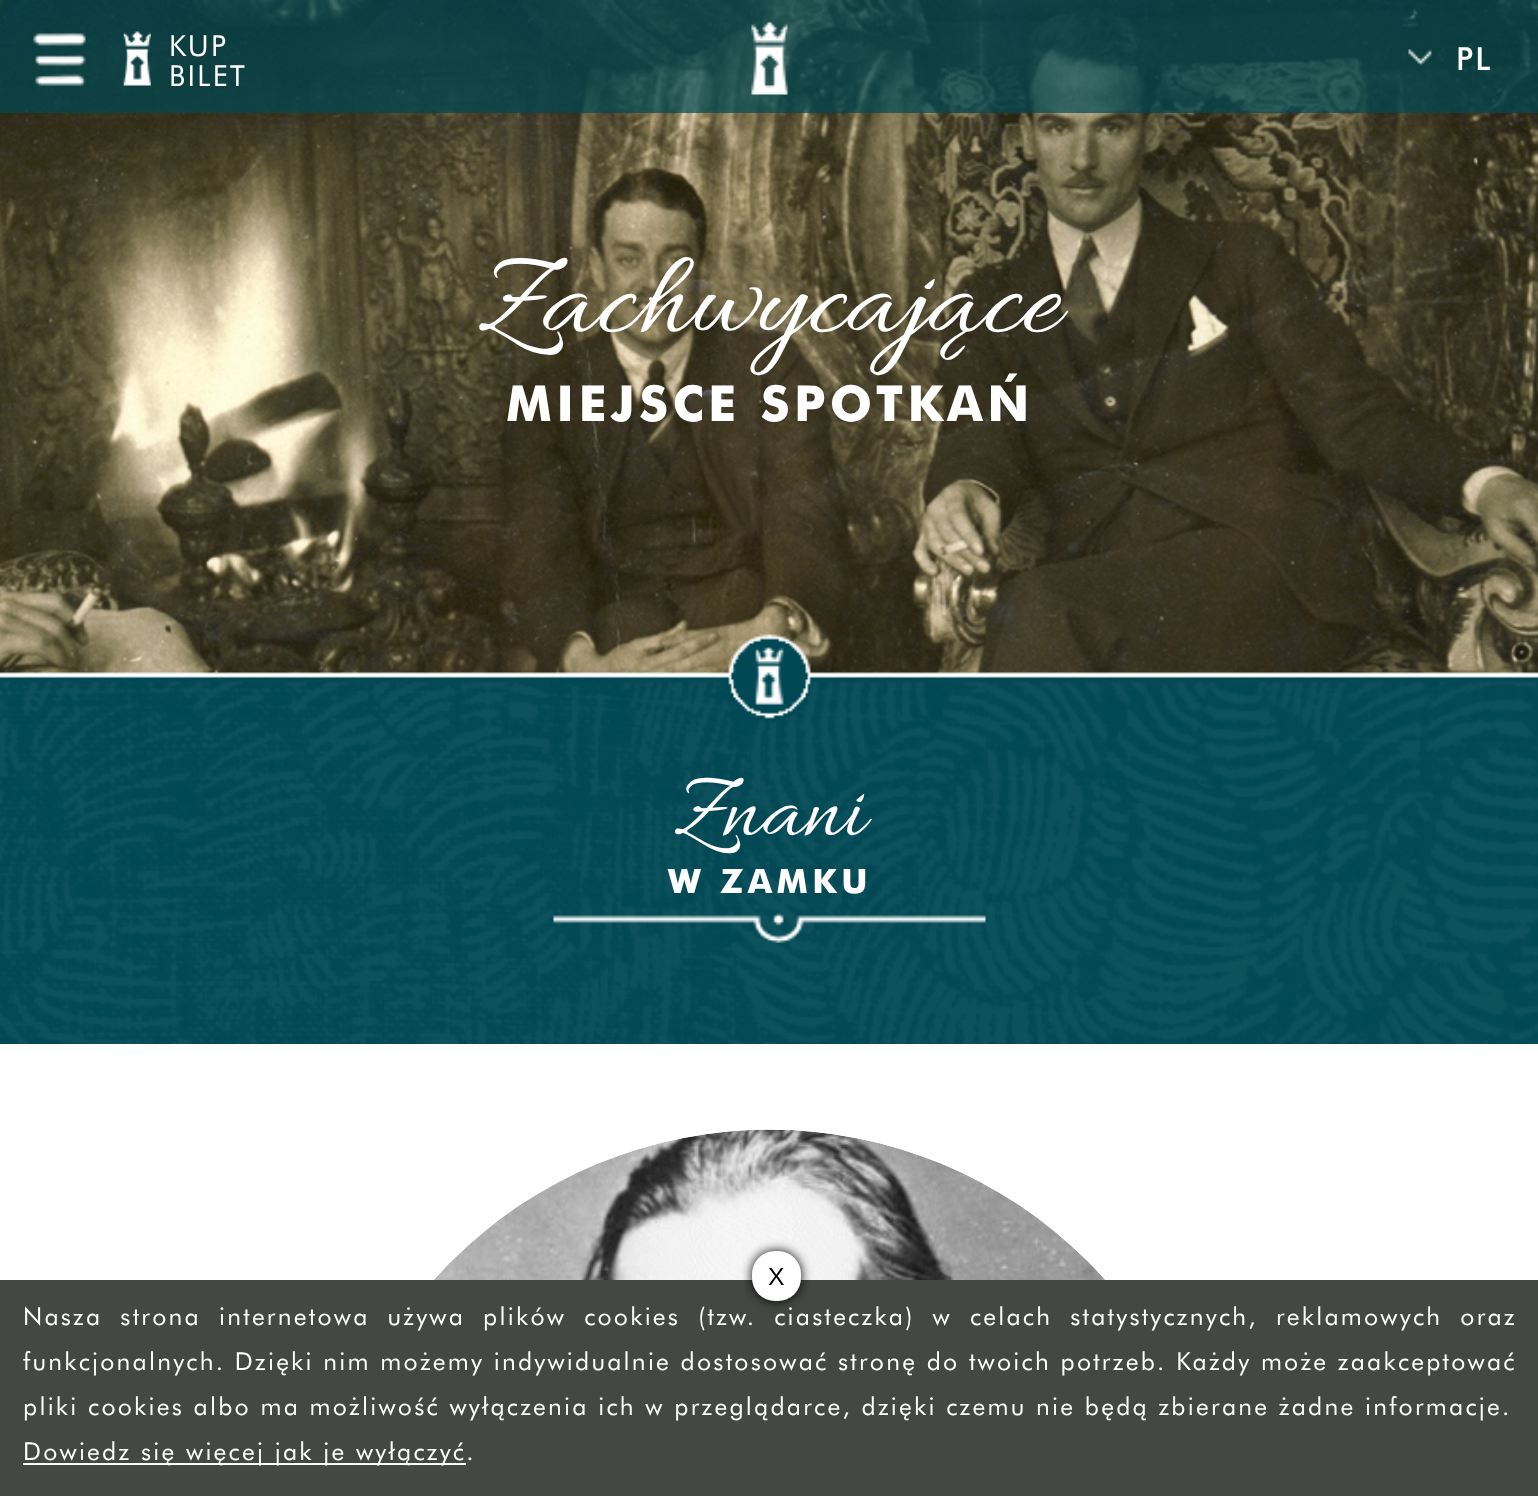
<!DOCTYPE html>
<meta charset="utf-8">
<style>body { margin: 0 } canvas { display: block }</style>
<canvas id="canvas" width="1538" height="1496"></canvas>
<img id="img1" src="images/5.png" hidden>
<img id="img2" src="images/1.png" hidden>
<img id="img3" src="images/2.png" hidden>
<img id="img4" src="images/3.png" hidden>
<img id="img5" src="images/4.png" hidden>
<img id="img6" src="images/6.png" hidden>
<img id="img7" src="images/7.png" hidden>
<img id="img8" src="images/8.png" hidden>
<script>
window.onload = function () {
    const canvas = document.getElementById('canvas');
    const context = canvas.getContext('2d');
    context.miterLimit = 4;
    context.fontKerning = 'normal';

    context.fillStyle = 'rgb(255, 255, 255)';
    context.fillRect(0, 0, 1538, 1496);
    context.drawImage(document.getElementById('img1'), 0, 0, 1538, 674);
    context.fillStyle = 'rgba(0, 72, 84, 0.7)';
    context.fillRect(0, 0, 1538, 113);
    context.drawImage(document.getElementById('img2'), 33, 32, 53, 54);
    context.drawImage(document.getElementById('img3'), 123, 31, 28, 55);
    context.drawImage(document.getElementById('img4'), 751, 22, 37, 73);
    context.drawImage(document.getElementById('img5'), 1408, 49, 24, 17);
    context.drawImage(document.getElementById('img6'), 0, 634, 1538, 410);
    context.drawImage(document.getElementById('img7'), 553, 913, 433, 30);
    context.drawImage(document.getElementById('img8'), 434, 1129, 671, 151);
    context.fillStyle = 'rgb(67, 73, 66)';
    context.fillRect(0, 1280, 1538, 216);
    context.fillStyle = 'rgb(0, 0, 0)';
    context.filter = 'blur(5.5px)';
    context.beginPath();
    context.roundRect(752, 1251, 49, 50, 23);
    context.fill();
    context.filter = 'none';
    context.fillStyle = 'rgb(255, 255, 255)';
    context.beginPath();
    context.roundRect(752, 1251, 49, 50, 23);
    context.fill();
    context.fillStyle = 'rgb(252, 252, 252)';
    context.fillRect(23, 1463, 443, 2);
    context.letterSpacing = '2.25px';
    context.font = '29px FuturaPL';
    context.fillStyle = 'rgb(255, 255, 255)';
    context.fillText('KUP', 169, 56);
    context.fillText('BILET', 169, 86);
    context.font = '500 32px FuturaPL';
    context.fillText('PL', 1456, 70);
    context.letterSpacing = '0px';
    context.font = '121.5px Allura';
    context.fillText('Zachwycające', 478, 329);
    context.letterSpacing = '4.5px';
    context.font = 'bold 49.5px FuturaPL';
    context.fillText('MIEJSCE SPOTKAŃ', 506, 421);
    context.letterSpacing = '0px';
    context.font = '94.5px Allura';
    context.fillText('Znani', 674, 833);
    context.letterSpacing = '4.5px';
    context.font = 'bold 33.75px FuturaPL';
    context.fillText('W ZAMKU', 668, 893);
    context.letterSpacing = '2.25px';
    context.font = '24.75px Liberation Sans';
    context.fillStyle = 'rgb(0, 0, 0)';
    context.fillText('X', 768, 1285);
    context.wordSpacing = '8.5px';
    context.font = '24.75px FuturaPL';
    context.fillStyle = 'rgb(255, 255, 255)';
    context.fillText('Nasza strona internetowa używa plików cookies (tzw. ciasteczka) w celach statystycznych, reklamowych oraz', 23, 1325);
    context.wordSpacing = '0px';
    context.fillText('funkcjonalnych. Dzięki nim możemy indywidualnie dostosować stronę do twoich potrzeb. Każdy może zaakceptować', 23, 1370);
    context.fillText('pliki cookies albo ma możliwość wyłączenia ich w przeglądarce, dzięki czemu nie będą zbierane żadne informacje.', 23, 1415);
    context.fillText('Dowiedz się więcej jak je wyłączyć.', 23, 1460);
};
</script>
